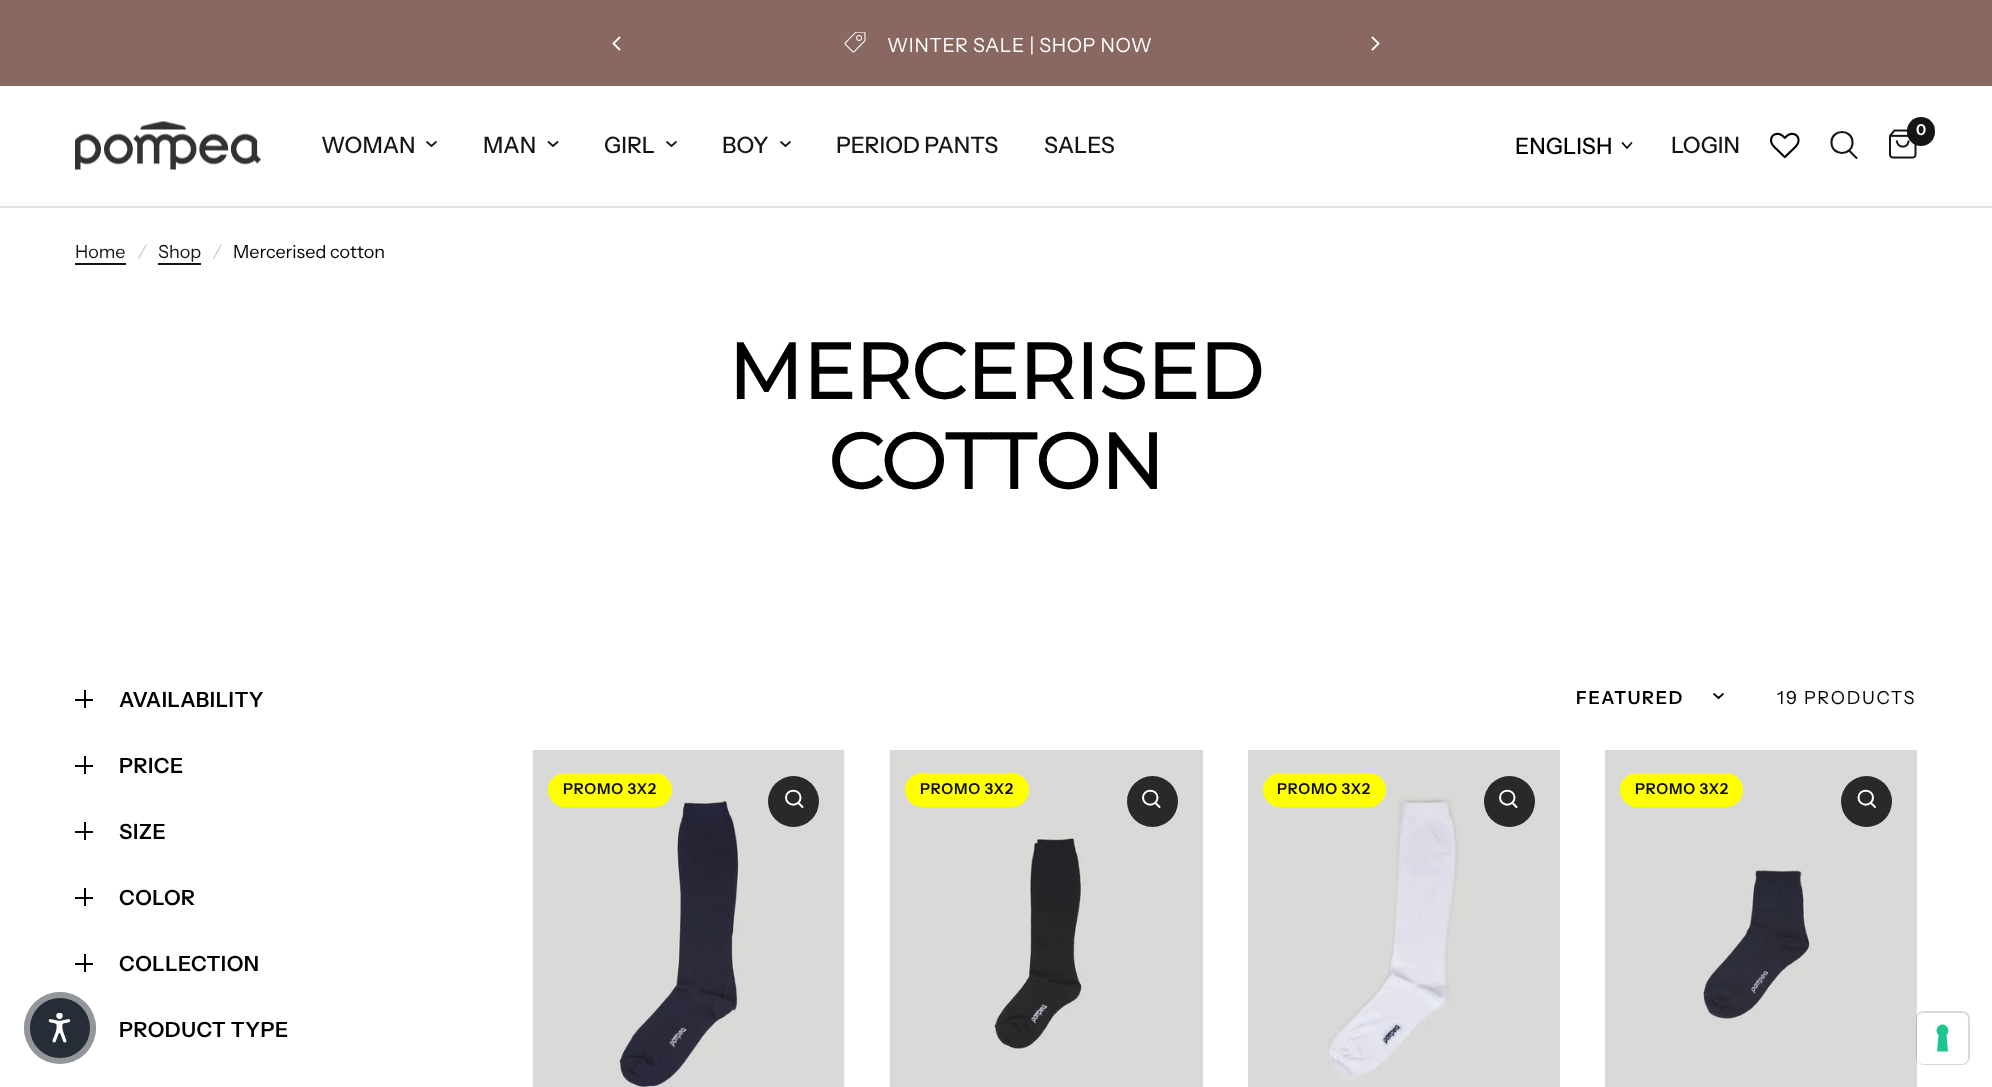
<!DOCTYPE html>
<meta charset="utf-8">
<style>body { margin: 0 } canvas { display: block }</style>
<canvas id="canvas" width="1992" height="1087"></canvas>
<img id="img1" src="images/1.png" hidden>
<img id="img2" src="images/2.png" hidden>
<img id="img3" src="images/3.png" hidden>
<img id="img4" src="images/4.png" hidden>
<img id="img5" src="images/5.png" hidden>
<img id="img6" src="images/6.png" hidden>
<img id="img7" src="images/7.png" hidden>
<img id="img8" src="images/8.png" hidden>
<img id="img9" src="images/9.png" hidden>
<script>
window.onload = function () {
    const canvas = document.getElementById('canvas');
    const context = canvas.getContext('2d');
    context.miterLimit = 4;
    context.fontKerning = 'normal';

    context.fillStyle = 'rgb(255, 255, 255)';
    context.fillRect(0, 0, 1992, 1087);
    context.fillStyle = 'rgb(39, 45, 54)';
    context.beginPath();
    context.arc(60, 1028, 36, 0, 2 * Math.PI);
    context.fill();
    context.beginPath();
    context.arc(60, 1028, 33, 0, 2 * Math.PI);
    context.strokeStyle = 'rgba(255, 255, 255, 0.5)';
    context.lineWidth = 6;
    context.stroke();
    context.drawImage(document.getElementById('img1'), 48, 1013, 23, 30);
    context.fillStyle = 'rgb(137, 104, 97)';
    context.fillRect(0, 0, 1992, 86);
    context.beginPath();
    context.moveTo(619.5, 37.5);
    context.lineTo(613.5, 43.5);
    context.lineTo(619.5, 49.5);
    context.strokeStyle = 'rgb(255, 255, 255)';
    context.lineWidth = 1.8;
    context.lineCap = 'round';
    context.lineJoin = 'round';
    context.stroke();
    context.drawImage(document.getElementById('img2'), 844, 32, 22, 21);
    context.beginPath();
    context.moveTo(1372.5, 37.5);
    context.lineTo(1378.5, 43.5);
    context.lineTo(1372.5, 49.5);
    context.stroke();
    context.fillStyle = 'rgb(226, 226, 226)';
    context.fillRect(0, 206, 1992, 2);
    context.drawImage(document.getElementById('img3'), 75, 121, 186, 49);
    context.beginPath();
    context.moveTo(436, 142);
    context.lineTo(431.5, 146);
    context.lineTo(427, 142);
    context.strokeStyle = 'rgb(21, 21, 21)';
    context.lineWidth = 1.7;
    context.stroke();
    context.beginPath();
    context.moveTo(557.5, 142);
    context.lineTo(553, 146);
    context.lineTo(548.5, 142);
    context.stroke();
    context.beginPath();
    context.moveTo(676, 142);
    context.lineTo(671.5, 146);
    context.lineTo(667, 142);
    context.stroke();
    context.beginPath();
    context.moveTo(790, 142);
    context.lineTo(785.5, 146);
    context.lineTo(781, 142);
    context.stroke();
    context.beginPath();
    context.moveTo(1631.5, 143);
    context.lineTo(1627, 148);
    context.lineTo(1622.5, 143);
    context.strokeStyle = 'rgb(0, 0, 0)';
    context.stroke();
    context.drawImage(document.getElementById('img4'), 1770, 132, 30, 27);
    context.beginPath();
    context.moveTo(1849.5, 151);
    context.lineTo(1856.5, 158);
    context.moveTo(1852.5, 142.5);
    context.bezierCurveTo(1852.5, 156.5, 1831.5, 156.5, 1831.5, 142.5);
    context.bezierCurveTo(1831.5, 128.5, 1852.5, 128.5, 1852.5, 142.5);
    context.closePath();
    context.strokeStyle = 'rgb(21, 21, 21)';
    context.lineWidth = 2.1;
    context.stroke();
    context.drawImage(document.getElementById('img5'), 1889, 129, 28, 30);
    context.fillStyle = 'rgb(21, 21, 21)';
    context.beginPath();
    context.roundRect(1907, 117, 28, 29, 14);
    context.fill();
    context.fillRect(75, 263, 51, 2);
    context.fillRect(158, 263, 43, 2);
    context.fillStyle = 'rgb(0, 0, 0)';
    context.fillRect(84, 690, 2, 18);
    context.fillRect(75, 699, 18, 2);
    context.fillRect(84, 756, 2, 18);
    context.fillRect(75, 765, 18, 2);
    context.fillRect(84, 822, 2, 18);
    context.fillRect(75, 831, 18, 2);
    context.fillRect(84, 888, 2, 18);
    context.fillRect(75, 897, 18, 2);
    context.fillRect(84, 954, 2, 18);
    context.fillRect(75, 963, 18, 2);
    context.beginPath();
    context.moveTo(1723, 694);
    context.lineTo(1718.5, 698);
    context.lineTo(1714, 694);
    context.strokeStyle = 'rgb(0, 0, 0)';
    context.lineWidth = 1.7;
    context.stroke();
    context.drawImage(document.getElementById('img6'), 532, 750, 313, 337);
    context.fillStyle = 'rgb(255, 255, 0)';
    context.beginPath();
    context.roundRect(548, 773, 124, 34, 17);
    context.fill();
    context.fillStyle = 'rgb(41, 41, 40)';
    context.beginPath();
    context.arc(793.5, 801.5, 25.5, 0, 2 * Math.PI);
    context.fill();
    context.beginPath();
    context.moveTo(798.5, 803);
    context.lineTo(802.5, 807);
    context.moveTo(800.5, 797.5);
    context.bezierCurveTo(800.5, 807, 786, 807, 786, 797.5);
    context.bezierCurveTo(786, 788.5, 800.5, 788.5, 800.5, 797.5);
    context.closePath();
    context.strokeStyle = 'rgb(255, 255, 255)';
    context.lineWidth = 2;
    context.stroke();
    context.drawImage(document.getElementById('img7'), 889, 750, 314, 337);
    context.fillStyle = 'rgb(255, 255, 0)';
    context.beginPath();
    context.roundRect(905, 773, 124, 34, 17);
    context.fill();
    context.fillStyle = 'rgb(41, 41, 40)';
    context.beginPath();
    context.arc(1152.5, 801.5, 25.5, 0, 2 * Math.PI);
    context.fill();
    context.beginPath();
    context.moveTo(1155.5, 803);
    context.lineTo(1159.5, 807);
    context.moveTo(1157.5, 797.5);
    context.bezierCurveTo(1157.5, 807, 1143, 807, 1143, 797.5);
    context.bezierCurveTo(1143, 788.5, 1157.5, 788.5, 1157.5, 797.5);
    context.closePath();
    context.stroke();
    context.drawImage(document.getElementById('img8'), 1248, 750, 312, 337);
    context.fillStyle = 'rgb(255, 255, 0)';
    context.beginPath();
    context.roundRect(1263, 773, 123, 34, 17);
    context.fill();
    context.fillStyle = 'rgb(41, 41, 40)';
    context.beginPath();
    context.arc(1509.5, 801.5, 25.5, 0, 2 * Math.PI);
    context.fill();
    context.beginPath();
    context.moveTo(1512.5, 803);
    context.lineTo(1516.5, 807);
    context.moveTo(1514.5, 797.5);
    context.bezierCurveTo(1514.5, 807, 1500, 807, 1500, 797.5);
    context.bezierCurveTo(1500, 788.5, 1514.5, 788.5, 1514.5, 797.5);
    context.closePath();
    context.stroke();
    context.drawImage(document.getElementById('img9'), 1605, 750, 312, 337);
    context.fillStyle = 'rgb(255, 255, 0)';
    context.beginPath();
    context.roundRect(1620, 773, 123, 34, 17);
    context.fill();
    context.fillStyle = 'rgb(41, 41, 40)';
    context.beginPath();
    context.arc(1866.5, 801.5, 25.5, 0, 2 * Math.PI);
    context.fill();
    context.beginPath();
    context.moveTo(1871, 803);
    context.lineTo(1875, 807);
    context.moveTo(1873, 797.5);
    context.bezierCurveTo(1873, 807, 1858.5, 807, 1858.5, 797.5);
    context.bezierCurveTo(1858.5, 788.5, 1873, 788.5, 1873, 797.5);
    context.closePath();
    context.stroke();
    context.beginPath();
    context.roundRect(1917, 1012, 52, 52, 7);
    context.strokeStyle = 'rgba(0, 0, 0, 0.15)';
    context.lineJoin = 'miter';
    context.stroke();
    context.fillStyle = 'rgb(255, 255, 255)';
    context.beginPath();
    context.roundRect(1917, 1013, 51, 51, 6);
    context.fill();
    context.fillStyle = 'rgb(28, 198, 145)';
    context.beginPath();
    context.moveTo(1942.5, 1024.5);
    context.bezierCurveTo(1948, 1024.5, 1950.5, 1031.5, 1946.5, 1035);
    context.lineTo(1948, 1051.5);
    context.lineTo(1937, 1051.5);
    context.lineTo(1938.5, 1035);
    context.bezierCurveTo(1934.5, 1031.5, 1937, 1024.5, 1942.5, 1024.5);
    context.closePath();
    context.fill('evenodd');
    context.letterSpacing = '0.6px';
    context.font = '19.5px Instrument Sans';
    context.fillStyle = 'rgb(255, 255, 255)';
    context.fillText('WINTER SALE | SHOP NOW', 887, 52);
    context.letterSpacing = '0px';
    context.font = '500 22.5px Instrument Sans';
    context.fillStyle = 'rgb(21, 21, 21)';
    context.fillText('WOMAN', 321, 153);
    context.fillText('MAN', 483, 153);
    context.fillText('GIRL', 604, 153);
    context.fillText('BOY', 722, 153);
    context.fillText('PERIOD PANTS', 836, 153);
    context.fillText('SALES', 1044, 153);
    context.fillStyle = 'rgb(0, 0, 0)';
    context.fillText('ENGLISH', 1515, 154);
    context.fillStyle = 'rgb(21, 21, 21)';
    context.fillText('LOGIN', 1671, 153);
    context.font = '600 15px Instrument Sans';
    context.fillStyle = 'rgb(255, 255, 255)';
    context.fillText('0', 1916, 135);
    context.font = '18px Instrument Sans';
    context.fillStyle = 'rgb(21, 21, 21)';
    context.fillText('Home', 75, 258);
    context.font = 'italic 18px Instrument Sans';
    context.fillStyle = 'rgb(204, 204, 204)';
    context.fillText('/', 138, 258);
    context.font = '18px Instrument Sans';
    context.fillStyle = 'rgb(21, 21, 21)';
    context.fillText('Shop', 158, 258);
    context.font = 'italic 18px Instrument Sans';
    context.fillStyle = 'rgb(204, 204, 204)';
    context.fillText('/', 213, 258);
    context.font = '18px Instrument Sans';
    context.fillStyle = 'rgb(0, 0, 0)';
    context.fillText('Mercerised cotton', 233, 258);
    context.font = 'bold 78px Montserrat';
    context.fillText('MERCERISED', 728, 399);
    context.fillText('COTTON', 828, 489);
    context.letterSpacing = '0.5px';
    context.font = '600 21px Instrument Sans';
    context.fillText('AVAILABILITY', 119, 707);
    context.fillText('PRICE', 119, 773);
    context.fillText('SIZE', 119, 839);
    context.fillText('COLOR', 119, 905);
    context.fillText('COLLECTION', 119, 971);
    context.fillText('PRODUCT TYPE', 119, 1037);
    context.letterSpacing = '1.75px';
    context.font = '600 18px Instrument Sans';
    context.fillText('FEATURED', 1576, 704);
    context.font = '18px Instrument Sans';
    context.fillText('19 PRODUCTS', 1777, 704);
    context.letterSpacing = '0.75px';
    context.font = '600 15px Instrument Sans';
    context.fillStyle = 'rgb(10, 10, 10)';
    context.fillText('PROMO 3X2', 563, 794);
    context.fillText('PROMO 3X2', 920, 794);
    context.fillText('PROMO 3X2', 1277, 794);
    context.fillText('PROMO 3X2', 1635, 794);
};
</script>
